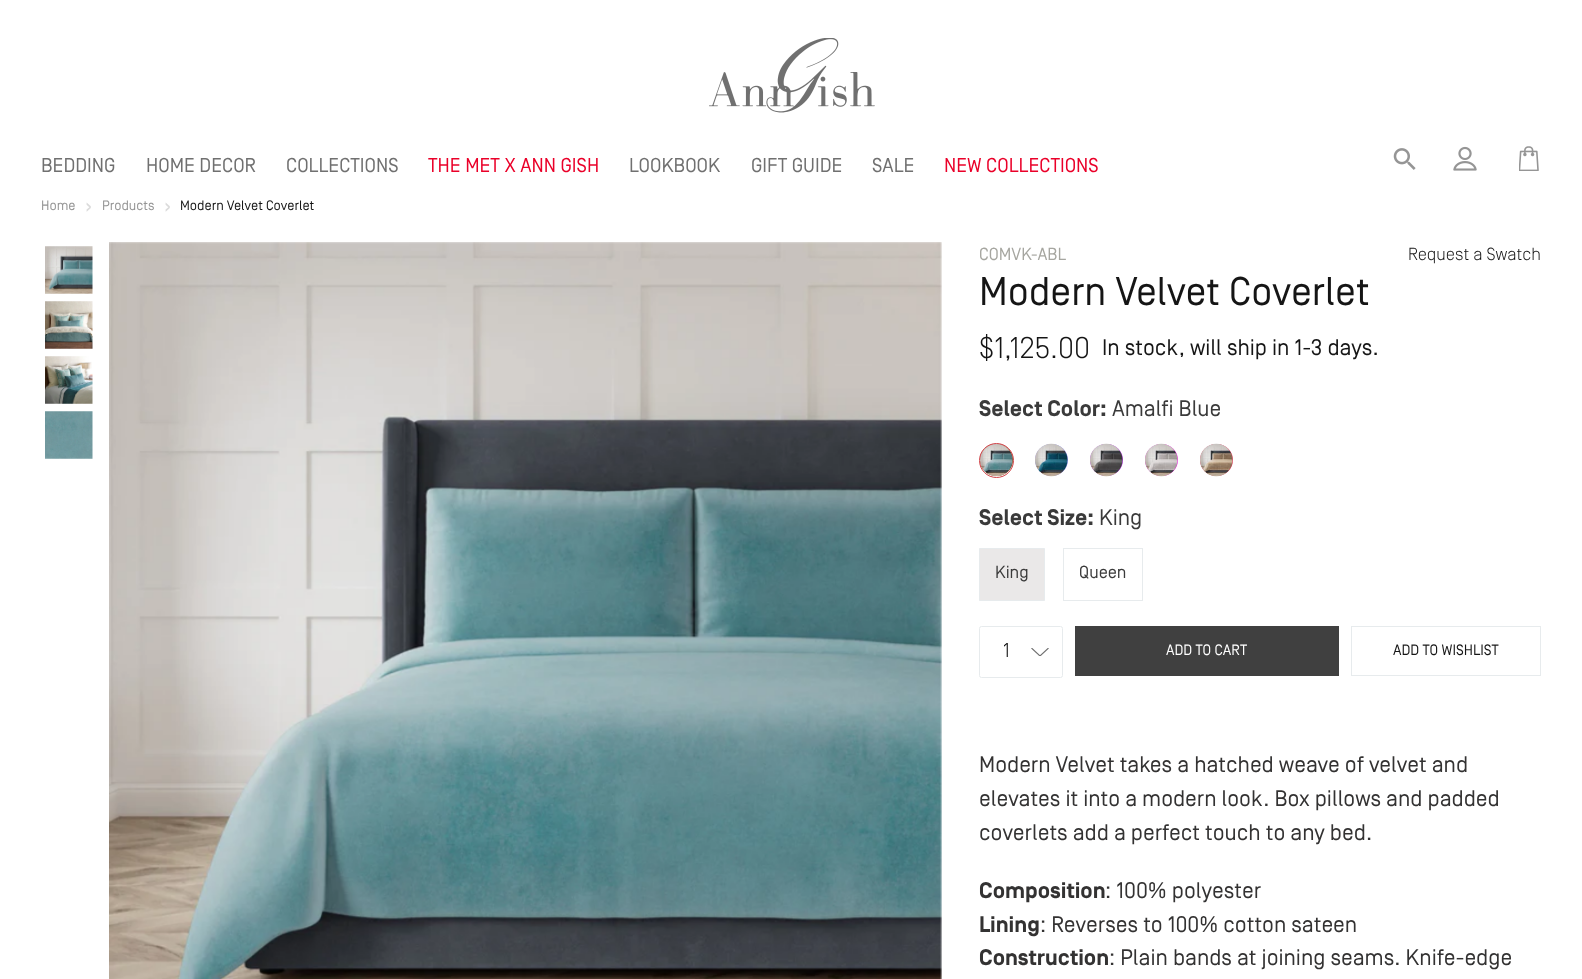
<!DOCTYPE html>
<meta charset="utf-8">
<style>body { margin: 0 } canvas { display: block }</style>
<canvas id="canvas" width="1582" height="979"></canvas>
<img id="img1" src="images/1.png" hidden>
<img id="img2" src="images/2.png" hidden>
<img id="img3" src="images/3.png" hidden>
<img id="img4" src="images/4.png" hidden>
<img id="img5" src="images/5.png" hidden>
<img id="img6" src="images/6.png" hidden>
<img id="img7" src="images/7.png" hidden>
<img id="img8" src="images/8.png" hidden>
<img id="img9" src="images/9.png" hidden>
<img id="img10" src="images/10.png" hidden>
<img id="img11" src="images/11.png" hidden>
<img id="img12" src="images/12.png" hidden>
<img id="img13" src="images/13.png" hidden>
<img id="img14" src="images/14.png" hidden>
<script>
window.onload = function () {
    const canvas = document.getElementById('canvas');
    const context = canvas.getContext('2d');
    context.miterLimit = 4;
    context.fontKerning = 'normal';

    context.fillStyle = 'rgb(255, 255, 255)';
    context.fillRect(0, 0, 1582, 979);
    context.drawImage(document.getElementById('img1'), 709, 38, 166, 75);
    context.drawImage(document.getElementById('img2'), 1393, 148, 23, 22);
    context.drawImage(document.getElementById('img3'), 1453, 146, 24, 25);
    context.drawImage(document.getElementById('img4'), 1519, 146, 20, 25);
    context.drawImage(document.getElementById('img5'), 45, 246, 48, 48);
    context.drawImage(document.getElementById('img6'), 45, 301, 48, 48);
    context.drawImage(document.getElementById('img7'), 45, 356, 48, 48);
    context.drawImage(document.getElementById('img8'), 45, 411, 48, 48);
    context.drawImage(document.getElementById('img9'), 109, 242, 833, 737);
    context.fillStyle = 'rgb(134, 75, 24)';
    context.beginPath();
    context.roundRect(980, 444, 33, 32, 16);
    context.fill();
    context.drawImage(document.getElementById('img10'), 980, 443, 33, 34);
    context.beginPath();
    context.arc(996.5, 460.5, 17, 0, 2 * Math.PI);
    context.strokeStyle = 'rgb(209, 68, 73)';
    context.stroke();
    context.fillStyle = 'rgb(156, 152, 239)';
    context.beginPath();
    context.roundRect(1035, 444, 33, 32, 16);
    context.fill();
    context.drawImage(document.getElementById('img11'), 1035, 443, 33, 34);
    context.fillStyle = 'rgb(191, 70, 234)';
    context.beginPath();
    context.roundRect(1090, 444, 33, 32, 16);
    context.fill();
    context.drawImage(document.getElementById('img12'), 1090, 443, 33, 34);
    context.fillStyle = 'rgb(239, 45, 228)';
    context.beginPath();
    context.roundRect(1145, 444, 33, 32, 16);
    context.fill();
    context.drawImage(document.getElementById('img13'), 1145, 443, 33, 34);
    context.fillStyle = 'rgb(230, 72, 108)';
    context.beginPath();
    context.roundRect(1200, 444, 33, 32, 16);
    context.fill();
    context.drawImage(document.getElementById('img14'), 1200, 443, 33, 34);
    context.fillStyle = 'rgb(234, 232, 232)';
    context.beginPath();
    context.rect(979.5, 548.5, 65, 52);
    context.fill();
    context.strokeStyle = 'rgb(231, 235, 237)';
    context.stroke();
    context.strokeRect(1063.5, 548.5, 79, 52);
    context.save();
    context.beginPath();
    context.rect(1031, 648, 18, 8);
    context.clip();
    context.beginPath();
    context.moveTo(1048.5, 648);
    context.lineTo(1040, 656);
    context.lineTo(1031.5, 648);
    context.strokeStyle = 'rgb(112, 112, 112)';
    context.lineWidth = 1.1;
    context.stroke();
    context.restore();
    context.beginPath();
    context.roundRect(979.5, 626.5, 83, 51, 2);
    context.stroke();
    context.fillStyle = 'rgb(64, 64, 64)';
    context.fillRect(1075, 626, 264, 50);
    context.strokeRect(1351.5, 626.5, 189, 49);
    context.font = '20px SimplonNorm';
    context.fillStyle = 'rgb(112, 112, 112)';
    context.fillText('BEDDING', 41, 172);
    context.fillText('HOME DECOR', 146, 172);
    context.fillText('COLLECTIONS', 286, 172);
    context.fillStyle = 'rgb(234, 0, 41)';
    context.fillText('THE MET X ANN GISH', 428, 172);
    context.fillStyle = 'rgb(112, 112, 112)';
    context.fillText('LOOKBOOK', 629, 172);
    context.fillText('GIFT GUIDE', 751, 172);
    context.fillText('SALE', 872, 172);
    context.fillStyle = 'rgb(234, 0, 41)';
    context.fillText('NEW COLLECTIONS', 944, 172);
    context.font = '13.75px SimplonNorm';
    context.fillStyle = 'rgb(149, 149, 149)';
    context.fillText('Home', 41, 210);
    context.font = '25px SimplonNorm';
    context.fillStyle = 'rgb(219, 219, 219)';
    context.fillText('›', 85, 214);
    context.font = '13.75px SimplonNorm';
    context.fillStyle = 'rgb(149, 149, 149)';
    context.fillText('Products', 102, 210);
    context.font = '25px SimplonNorm';
    context.fillStyle = 'rgb(219, 219, 219)';
    context.fillText('›', 164, 214);
    context.font = '13.75px SimplonNorm';
    context.fillStyle = 'rgb(21, 21, 21)';
    context.fillText('Modern Velvet Coverlet', 180, 210);
    context.font = '17.5px SimplonNorm';
    context.fillStyle = 'rgb(166, 166, 160)';
    context.fillText('COMVK-ABL', 979, 260);
    context.font = '300 17.5px SimplonNorm';
    context.fillStyle = 'rgb(21, 21, 21)';
    context.fillText('Request a Swatch', 1408, 260);
    context.font = '40px SimplonNorm';
    context.fillText('Modern Velvet Coverlet', 979, 305);
    context.font = '300 30px SimplonNorm';
    context.fillText('$1,125.00', 979, 358);
    context.font = '22.5px SimplonNorm';
    context.fillText('In stock, will ship in 1-3 days.', 1102, 355);
    context.font = 'bold 22.5px SimplonNorm';
    context.fillStyle = 'rgb(58, 58, 58)';
    context.fillText('Select Color:', 979, 416);
    context.font = '22.5px SimplonNorm';
    context.fillText('Amalfi Blue', 1112, 416);
    context.font = 'bold 22.5px SimplonNorm';
    context.fillText('Select Size:', 979, 525);
    context.font = '22.5px SimplonNorm';
    context.fillText('King', 1099, 525);
    context.font = '17.5px SimplonNorm';
    context.fillText('King', 995, 578);
    context.fillText('Queen', 1079, 578);
    context.font = '300 20px SimplonNorm';
    context.fillStyle = 'rgb(0, 0, 0)';
    context.fillText('1', 1003, 657);
    context.font = '15px SimplonNorm';
    context.fillStyle = 'rgb(255, 255, 255)';
    context.fillText('ADD TO CART', 1166, 655);
    context.fillStyle = 'rgb(21, 21, 21)';
    context.fillText('ADD TO WISHLIST', 1393, 655);
    context.font = '22.5px SimplonNorm';
    context.fillStyle = 'rgb(51, 50, 50)';
    context.fillText('Modern Velvet takes a hatched weave of velvet and', 979, 772);
    context.fillText('elevates it into a modern look. Box pillows and padded', 979, 806);
    context.fillText('coverlets add a perfect touch to any bed.', 979, 840);
    context.font = 'bold 22.5px SimplonNorm';
    context.fillText('Composition', 979, 898);
    context.font = '22.5px SimplonNorm';
    context.fillText(': 100% polyester', 1105, 898);
    context.font = 'bold 22.5px SimplonNorm';
    context.fillText('Lining', 979, 932);
    context.font = '22.5px SimplonNorm';
    context.fillText(': Reverses to 100% cotton sateen', 1040, 932);
    context.font = 'bold 22.5px SimplonNorm';
    context.fillText('Construction', 979, 965);
    context.font = '22.5px SimplonNorm';
    context.fillText(': Plain bands at joining seams. Knife-edge', 1109, 965);
};
</script>
